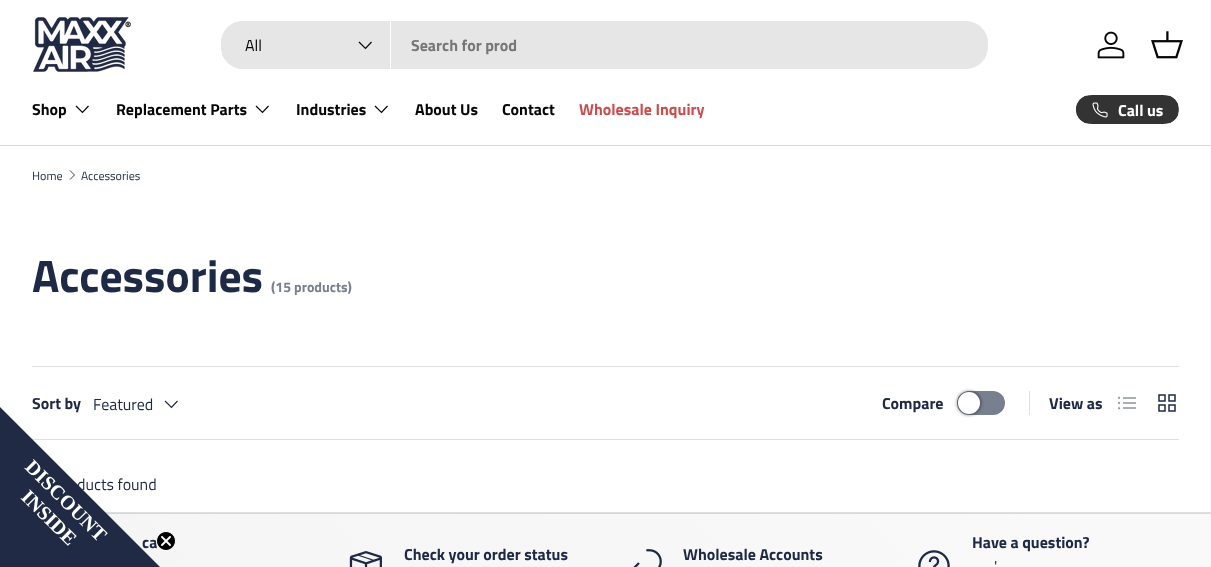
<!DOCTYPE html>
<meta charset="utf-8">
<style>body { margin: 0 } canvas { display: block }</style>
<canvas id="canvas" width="1211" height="567"></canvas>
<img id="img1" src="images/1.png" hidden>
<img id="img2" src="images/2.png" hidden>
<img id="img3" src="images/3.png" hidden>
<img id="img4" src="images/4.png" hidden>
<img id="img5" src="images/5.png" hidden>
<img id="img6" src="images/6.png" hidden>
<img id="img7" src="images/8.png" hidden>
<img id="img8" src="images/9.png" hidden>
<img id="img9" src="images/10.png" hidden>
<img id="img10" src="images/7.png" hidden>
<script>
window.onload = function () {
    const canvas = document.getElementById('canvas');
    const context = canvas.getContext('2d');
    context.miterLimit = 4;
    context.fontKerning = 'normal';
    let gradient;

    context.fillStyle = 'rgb(255, 255, 255)';
    context.fillRect(0, 0, 1211, 567);
    context.fillStyle = 'rgb(218, 218, 218)';
    context.fillRect(0, 145, 1211, 1);
    context.drawImage(document.getElementById('img1'), 33, 17, 98, 55);
    context.fillStyle = 'rgb(230, 230, 230)';
    context.beginPath();
    context.roundRect(221, 21, 767, 48, 22);
    context.fill();
    context.beginPath();
    context.roundRect(221, 21, 170, 48, [22, 0, 0, 22]);
    context.fill();
    context.fillStyle = 'rgb(255, 255, 255)';
    context.fillRect(390, 21, 1, 48);
    context.beginPath();
    context.moveTo(371.5, 42);
    context.lineTo(365.5, 48.5);
    context.lineTo(359, 42);
    context.strokeStyle = 'rgb(7, 7, 7)';
    context.lineWidth = 1.2;
    context.stroke();
    context.drawImage(document.getElementById('img2'), 1097, 31, 28, 28);
    context.drawImage(document.getElementById('img3'), 1151, 31, 32, 28);
    context.beginPath();
    context.moveTo(88.5, 106);
    context.lineTo(82.5, 112.5);
    context.lineTo(76, 106);
    context.stroke();
    context.beginPath();
    context.moveTo(268.5, 106);
    context.lineTo(262.5, 112.5);
    context.lineTo(256, 106);
    context.stroke();
    context.beginPath();
    context.moveTo(387.5, 106);
    context.lineTo(381.5, 112.5);
    context.lineTo(375, 106);
    context.stroke();
    context.save();
    context.beginPath();
    context.roundRect(1076, 95, 103, 29, 14.5);
    context.clip();
    gradient = context.createLinearGradient(881, 73, 1172, 146);
    gradient.addColorStop(0.6, 'rgb(90, 90, 90)');
    gradient.addColorStop(0.6, 'rgb(51, 51, 51)');
    gradient.addColorStop(1, 'rgb(51, 51, 51)');
    context.fillStyle = gradient;
    context.fillRect(1076, 96, 102, 27);
    context.restore();
    context.beginPath();
    context.roundRect(1076.5, 95.5, 102, 28, 14);
    context.strokeStyle = 'rgb(51, 51, 51)';
    context.lineWidth = 1;
    context.stroke();
    context.drawImage(document.getElementById('img4'), 1092, 102, 16, 16);
    context.beginPath();
    context.moveTo(70, 170.5);
    context.lineTo(74.5, 175);
    context.lineTo(70, 179.5);
    context.strokeStyle = 'rgb(30, 41, 69)';
    context.lineWidth = 0.9;
    context.stroke();
    context.fillStyle = 'rgb(221, 223, 227)';
    context.fillRect(32, 366, 1147, 1);
    context.fillRect(32, 439, 1147, 1);
    context.beginPath();
    context.moveTo(177.5, 401);
    context.lineTo(171.5, 407.5);
    context.lineTo(165, 401);
    context.lineWidth = 1.2;
    context.stroke();
    context.fillStyle = 'rgb(120, 127, 143)';
    context.beginPath();
    context.roundRect(957, 391, 48, 24, 12);
    context.fill();
    context.fillStyle = 'rgba(0, 0, 0, 0.25)';
    context.filter = 'blur(1px)';
    context.beginPath();
    context.roundRect(956, 390, 26, 26, 13);
    context.fill();
    context.filter = 'none';
    context.fillStyle = 'rgb(255, 255, 255)';
    context.beginPath();
    context.arc(969, 403, 11, 0, 2 * Math.PI);
    context.fill();
    context.fillStyle = 'rgb(221, 223, 227)';
    context.fillRect(1029, 391, 1, 24);
    context.drawImage(document.getElementById('img5'), 1118, 396, 18, 14);
    context.drawImage(document.getElementById('img6'), 1158, 394, 18, 18);
    context.fillRect(105, 512, 1106, 1);
    gradient = context.createLinearGradient(266, 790, 945, 134);
    gradient.addColorStop(0.13, 'rgb(213, 214, 219)');
    gradient.addColorStop(0.86, 'rgb(216, 218, 222)');
    context.fillStyle = gradient;
    context.fillRect(106, 513, 1105, 1);
    gradient = context.createLinearGradient(266, 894, 945, 238);
    gradient.addColorStop(0.13, 'rgb(245, 245, 245)');
    gradient.addColorStop(0.86, 'rgb(249, 249, 249)');
    context.fillStyle = gradient;
    context.fillRect(107, 514, 1104, 53);
    context.drawImage(document.getElementById('img7'), 918, 550, 32, 17);
    context.drawImage(document.getElementById('img8'), 349, 551, 33, 16);
    context.drawImage(document.getElementById('img9'), 633, 549, 29, 18);
    context.font = '16px Titillium Web';
    context.fillStyle = 'rgb(7, 7, 7)';
    context.fillText('All', 245, 51);
    context.font = 'bold 16px Titillium Web';
    context.fillStyle = 'rgb(119, 119, 119)';
    context.fillText('Search for prod', 411, 51);
    context.fillStyle = 'rgb(7, 7, 7)';
    context.fillText('Shop', 32, 115);
    context.fillText('Replacement Parts', 116, 115);
    context.fillText('Industries', 296, 115);
    context.fillText('About Us', 415, 115);
    context.fillText('Contact', 502, 115);
    context.fillStyle = 'rgb(203, 77, 77)';
    context.fillText('Wholesale Inquiry', 579, 115);
    context.fillStyle = 'rgb(255, 255, 255)';
    context.fillText('Call us', 1118, 116);
    context.font = '12px Titillium Web';
    context.fillStyle = 'rgb(30, 41, 69)';
    context.fillText('Home', 32, 180);
    context.fillText('Accessories', 81, 180);
    context.font = 'bold 45.5px Titillium Web';
    context.fillText('Accessories', 32, 292);
    context.font = 'bold 14px Titillium Web';
    context.fillStyle = 'rgb(120, 127, 143)';
    context.fillText('(15 products)', 271, 292);
    context.font = 'bold 16px Titillium Web';
    context.fillStyle = 'rgb(30, 41, 69)';
    context.fillText('Sort by', 32, 409);
    context.font = '16px Titillium Web';
    context.fillText('Featured', 93, 410);
    context.font = 'bold 16px Titillium Web';
    context.fillText('Compare', 882, 409);
    context.fillText('View as', 1049, 409);
    context.font = '16px Titillium Web';
    context.fillText('ducts found', 77, 490);
    context.font = 'bold 16px Titillium Web';
    context.fillText('ca', 142, 548);
    context.fillStyle = 'rgb(32, 42, 68)';
    context.beginPath();
    context.moveTo(0, 407);
    context.lineTo(0, 567);
    context.lineTo(160, 567);
    context.closePath();
    context.fill();
    context.drawImage(document.getElementById('img10'), 156, 531, 20, 20);
    context.font = 'bold 20px Liberation Serif';
    context.fillStyle = 'rgb(255, 255, 255)';
    context.save();
    context.translate(24, 468);
    context.rotate(45 * Math.PI / 180);
    context.fillText('DISCOUNT', 0, 0);
    context.restore();
    context.save();
    context.translate(20, 498);
    context.rotate(45 * Math.PI / 180);
    context.fillText('INSIDE', 0, 0);
    context.restore();
    context.font = 'bold 16px Titillium Web';
    context.fillStyle = 'rgb(30, 41, 69)';
    context.fillText('Have a question?', 972, 548);
    context.font = '16px Titillium Web';
    context.fillText('\'', 994, 572);
    context.font = 'bold 16px Titillium Web';
    context.fillText('Check your order status', 404, 560);
    context.fillText('Wholesale Accounts', 683, 560);
};
</script>
